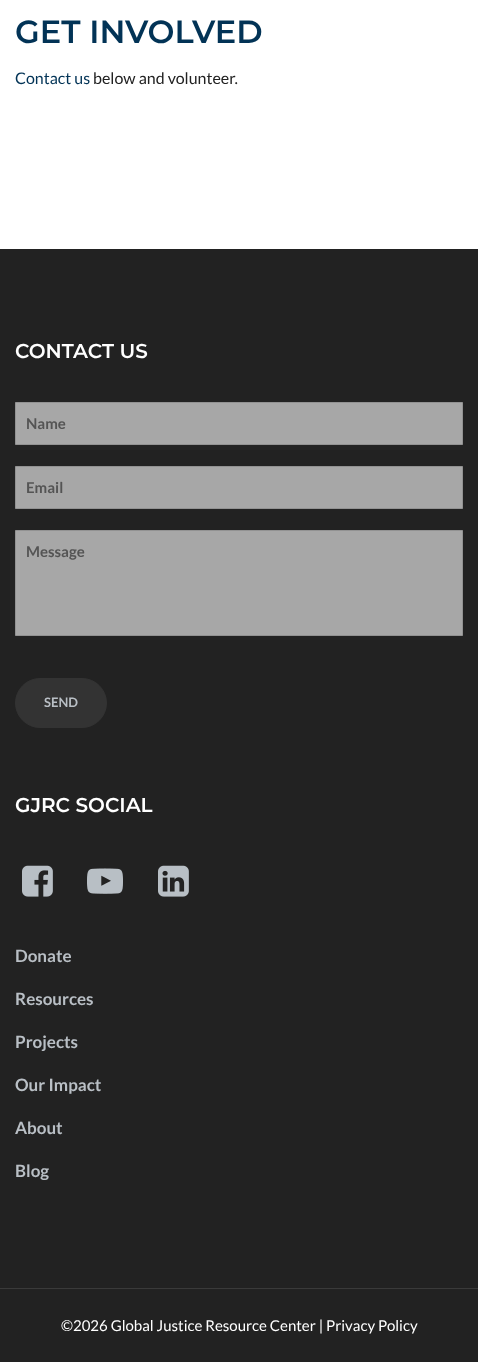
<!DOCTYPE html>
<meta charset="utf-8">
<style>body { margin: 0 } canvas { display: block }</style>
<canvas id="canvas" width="478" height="1362"></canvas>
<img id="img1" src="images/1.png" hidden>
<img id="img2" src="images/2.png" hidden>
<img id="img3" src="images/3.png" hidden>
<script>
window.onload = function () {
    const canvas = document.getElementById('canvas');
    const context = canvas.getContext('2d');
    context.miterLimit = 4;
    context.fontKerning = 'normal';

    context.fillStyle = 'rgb(255, 255, 255)';
    context.fillRect(0, 0, 478, 1362);
    context.fillStyle = 'rgb(34, 34, 34)';
    context.fillRect(0, 249, 478, 1039);
    context.fillStyle = 'rgb(58, 58, 58)';
    context.fillRect(0, 1288, 478, 1);
    context.fillStyle = 'rgb(167, 167, 167)';
    context.beginPath();
    context.rect(15.5, 402.5, 447, 42);
    context.fill();
    context.strokeStyle = 'rgb(146, 146, 146)';
    context.stroke();
    context.beginPath();
    context.rect(15.5, 466.5, 447, 42);
    context.fill();
    context.stroke();
    context.beginPath();
    context.rect(15.5, 530.5, 447, 105);
    context.fill();
    context.stroke();
    context.fillStyle = 'rgb(51, 51, 51)';
    context.beginPath();
    context.roundRect(15.5, 678.5, 91, 49, 24.5);
    context.fill();
    context.strokeStyle = 'rgb(51, 51, 51)';
    context.stroke();
    context.drawImage(document.getElementById('img1'), 22, 865, 31, 32);
    context.drawImage(document.getElementById('img2'), 87, 868, 36, 26);
    context.drawImage(document.getElementById('img3'), 158, 865, 31, 32);
    context.fillStyle = 'rgb(34, 34, 34)';
    context.fillRect(0, 1289, 478, 73);
    context.font = '600 32px Montserrat';
    context.fillStyle = 'rgb(2, 51, 86)';
    context.fillText('GET INVOLVED', 15, 43);
    context.font = '16px Lato';
    context.fillText('Contact us', 15, 84);
    context.fillStyle = 'rgb(34, 34, 34)';
    context.fillText('below and volunteer.', 93, 84);
    context.font = '600 20px Montserrat';
    context.fillStyle = 'rgb(255, 255, 255)';
    context.fillText('CONTACT US', 15, 358);
    context.font = 'bold 15px Lato';
    context.fillStyle = 'rgb(84, 84, 84)';
    context.fillText('Name', 26, 429);
    context.fillText('Email', 26, 493);
    context.fillText('Message', 26, 557);
    context.font = 'bold 13px Lato';
    context.fillStyle = 'rgb(185, 191, 197)';
    context.fillText('SEND', 44, 707);
    context.font = '600 20px Montserrat';
    context.fillStyle = 'rgb(255, 255, 255)';
    context.fillText('GJRC SOCIAL', 15, 812);
    context.font = 'bold 17px Lato';
    context.fillStyle = 'rgb(185, 191, 197)';
    context.fillText('Donate', 15, 962);
    context.fillText('Resources', 15, 1005);
    context.fillText('Projects', 15, 1048);
    context.fillText('Our Impact', 15, 1091);
    context.fillText('About', 15, 1134);
    context.fillText('Blog', 15, 1177);
    context.font = '15px Lato';
    context.fillStyle = 'rgb(255, 255, 255)';
    context.fillText('©2026 Global Justice Resource Center | Privacy Policy', 61, 1331);
};
</script>
